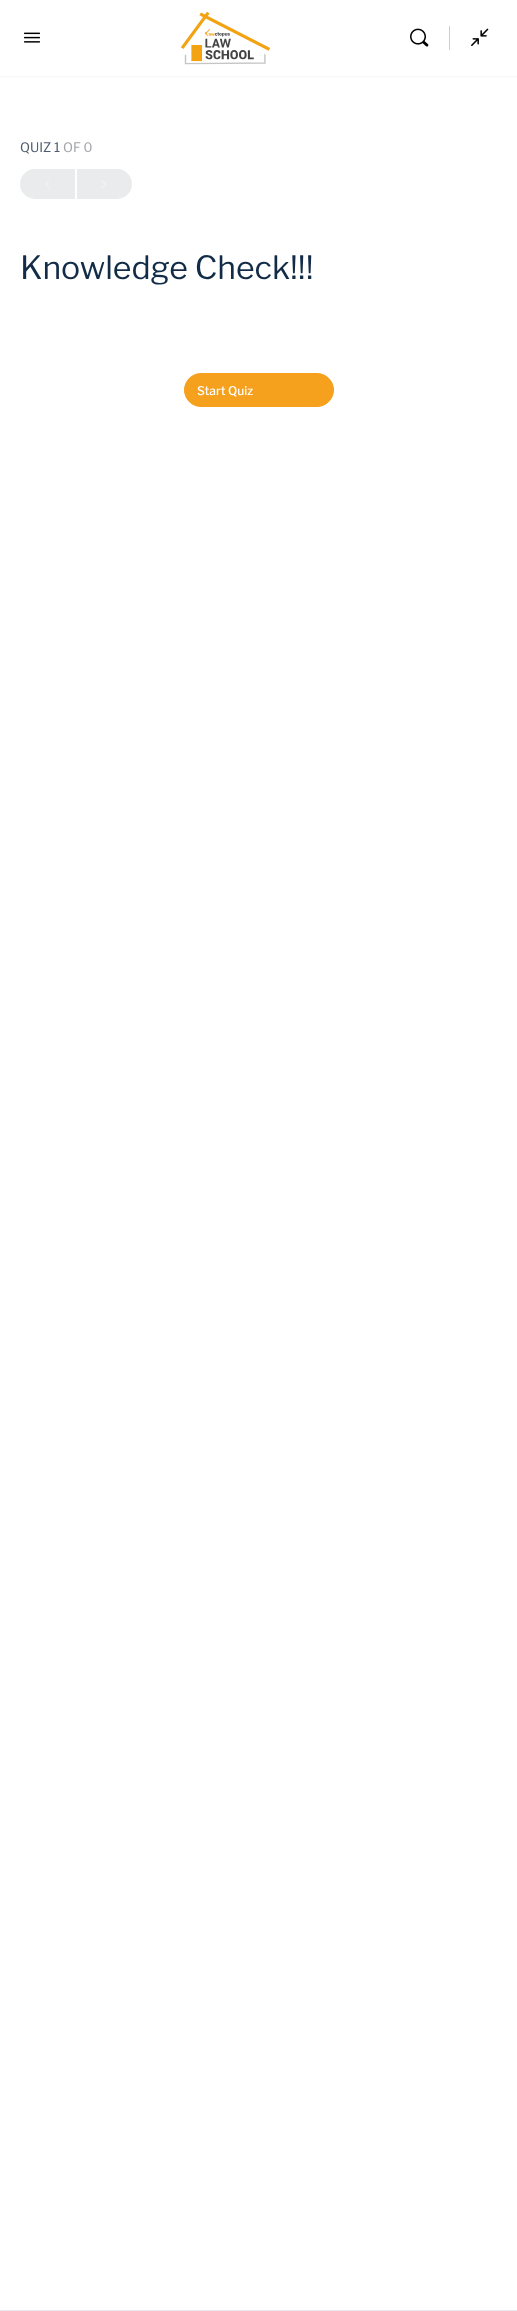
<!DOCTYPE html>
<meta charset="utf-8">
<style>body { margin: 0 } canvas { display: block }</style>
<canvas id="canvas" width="517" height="2311"></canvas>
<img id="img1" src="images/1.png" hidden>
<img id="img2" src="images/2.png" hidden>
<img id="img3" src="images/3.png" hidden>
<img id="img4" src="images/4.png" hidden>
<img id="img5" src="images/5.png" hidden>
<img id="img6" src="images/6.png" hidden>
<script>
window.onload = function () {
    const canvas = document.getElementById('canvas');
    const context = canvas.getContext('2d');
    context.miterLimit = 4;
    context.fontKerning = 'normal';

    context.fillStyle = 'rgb(255, 255, 255)';
    context.fillRect(0, 0, 517, 2311);
    context.fillStyle = 'rgb(246, 247, 248)';
    context.fillRect(0, 76, 517, 1);
    context.drawImage(document.getElementById('img1'), 24, 32, 16, 11);
    context.drawImage(document.getElementById('img2'), 180, 11, 91, 54);
    context.drawImage(document.getElementById('img3'), 410, 28, 19, 19);
    context.fillStyle = 'rgb(204, 204, 204)';
    context.fillRect(449, 26, 1, 24);
    context.drawImage(document.getElementById('img4'), 471, 28, 18, 18);
    context.fillStyle = 'rgb(231, 233, 236)';
    context.fillRect(0, 2310, 517, 1);
    context.fillStyle = 'rgb(233, 235, 237)';
    context.beginPath();
    context.roundRect(20, 169, 55, 30, [15, 0, 0, 15]);
    context.fill();
    context.drawImage(document.getElementById('img5'), 45, 180, 4, 8);
    context.beginPath();
    context.roundRect(77, 169, 55, 30, [0, 15, 15, 0]);
    context.fill();
    context.drawImage(document.getElementById('img6'), 102, 180, 4, 8);
    context.fillStyle = 'rgb(246, 161, 30)';
    context.beginPath();
    context.roundRect(184.5, 373.5, 149, 33, 16.5);
    context.fill();
    context.strokeStyle = 'rgb(246, 161, 30)';
    context.stroke();
    context.font = '100 13px "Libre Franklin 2"';
    context.fillStyle = 'rgb(77, 92, 109)';
    context.fillText('QUIZ 1', 20, 152);
    context.fillStyle = 'rgb(163, 165, 169)';
    context.fillText('OF 0', 63, 152);
    context.font = '100 32px "Libre Franklin 2"';
    context.fillStyle = 'rgb(18, 43, 70)';
    context.fillText('Knowledge Check!!!', 20, 279);
    context.font = '100 12px Libre Franklin';
    context.fillStyle = 'rgb(255, 255, 255)';
    context.fillText('Start Quiz', 197, 395);
};
</script>
